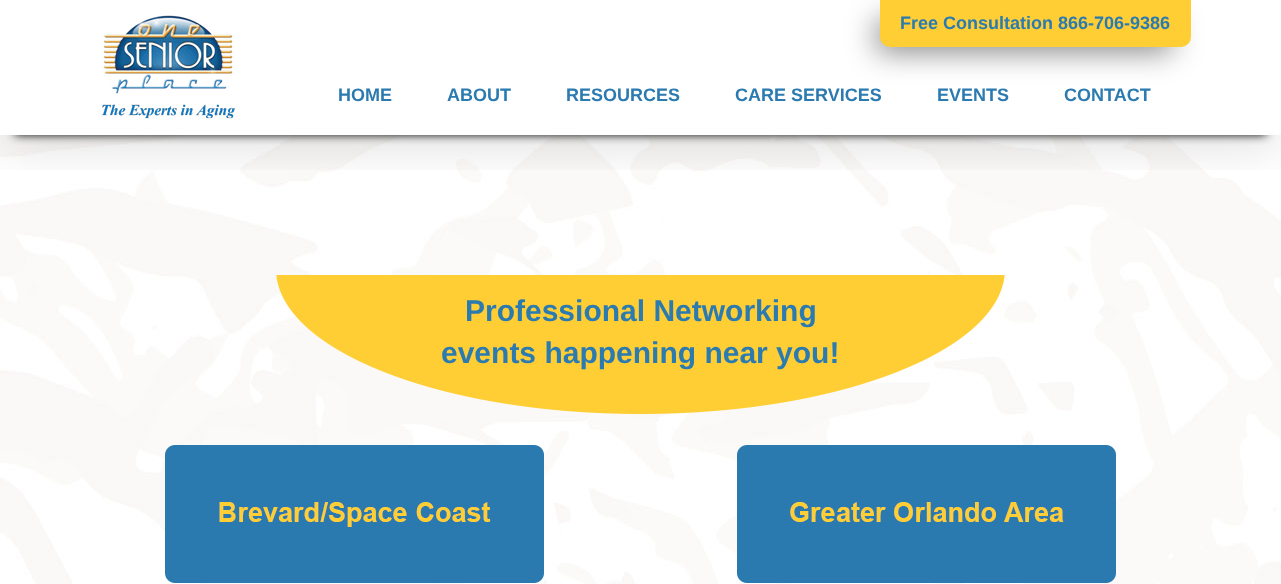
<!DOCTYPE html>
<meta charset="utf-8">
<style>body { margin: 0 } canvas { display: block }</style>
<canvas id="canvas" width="1281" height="584"></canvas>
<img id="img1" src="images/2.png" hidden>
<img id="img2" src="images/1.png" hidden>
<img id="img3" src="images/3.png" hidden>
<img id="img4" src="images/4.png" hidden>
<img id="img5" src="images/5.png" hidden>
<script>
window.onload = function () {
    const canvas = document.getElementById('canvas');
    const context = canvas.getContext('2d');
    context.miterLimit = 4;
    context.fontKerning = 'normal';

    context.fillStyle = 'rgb(255, 255, 255)';
    context.fillRect(0, 0, 1281, 584);
    context.drawImage(document.getElementById('img1'), 0, 135, 1281, 449);
    context.save();
    context.beginPath();
    context.rect(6, 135, 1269, 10);
    context.clip();
    context.fillStyle = 'rgb(17, 17, 17)';
    context.filter = 'blur(5px)';
    context.beginPath();
    context.rect(15, 30, 1251, 105);
    context.fill();
    context.filter = 'none';
    context.restore();
    context.save();
    context.beginPath();
    context.rect(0, 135, 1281, 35);
    context.clip();
    context.fillStyle = 'rgba(0, 0, 0, 0.14)';
    context.filter = 'blur(25px)';
    context.beginPath();
    context.rect(2, 12, 1277, 131);
    context.fill();
    context.filter = 'none';
    context.restore();
    context.drawImage(document.getElementById('img2'), 101, 15, 135, 104);
    context.fillStyle = 'rgba(0, 0, 0, 0.5)';
    context.filter = 'blur(15px)';
    context.beginPath();
    context.roundRect(877, 20, 295, 31, 2);
    context.fill();
    context.filter = 'none';
    context.fillStyle = 'rgb(255, 206, 52)';
    context.beginPath();
    context.roundRect(880, 0, 311, 47, [0, 0, 10, 10]);
    context.fill();
    context.drawImage(document.getElementById('img3'), 276, 275, 729, 139);
    context.drawImage(document.getElementById('img4'), 165, 445, 379, 138);
    context.drawImage(document.getElementById('img5'), 737, 445, 379, 138);
    context.font = 'bold 18px Liberation Sans';
    context.fillStyle = 'rgb(44, 123, 176)';
    context.fillText('Free Consultation 866-706-9386', 900, 29);
    context.fillText('HOME', 338, 101);
    context.fillText('ABOUT', 447, 101);
    context.fillText('RESOURCES', 566, 101);
    context.fillText('CARE SERVICES', 735, 101);
    context.fillText('EVENTS', 937, 101);
    context.fillText('CONTACT', 1064, 101);
    context.font = 'bold 30px Liberation Sans';
    context.fillText('Professional Networking', 465, 321);
    context.fillText('events happening near you!', 441, 363);
};
</script>
